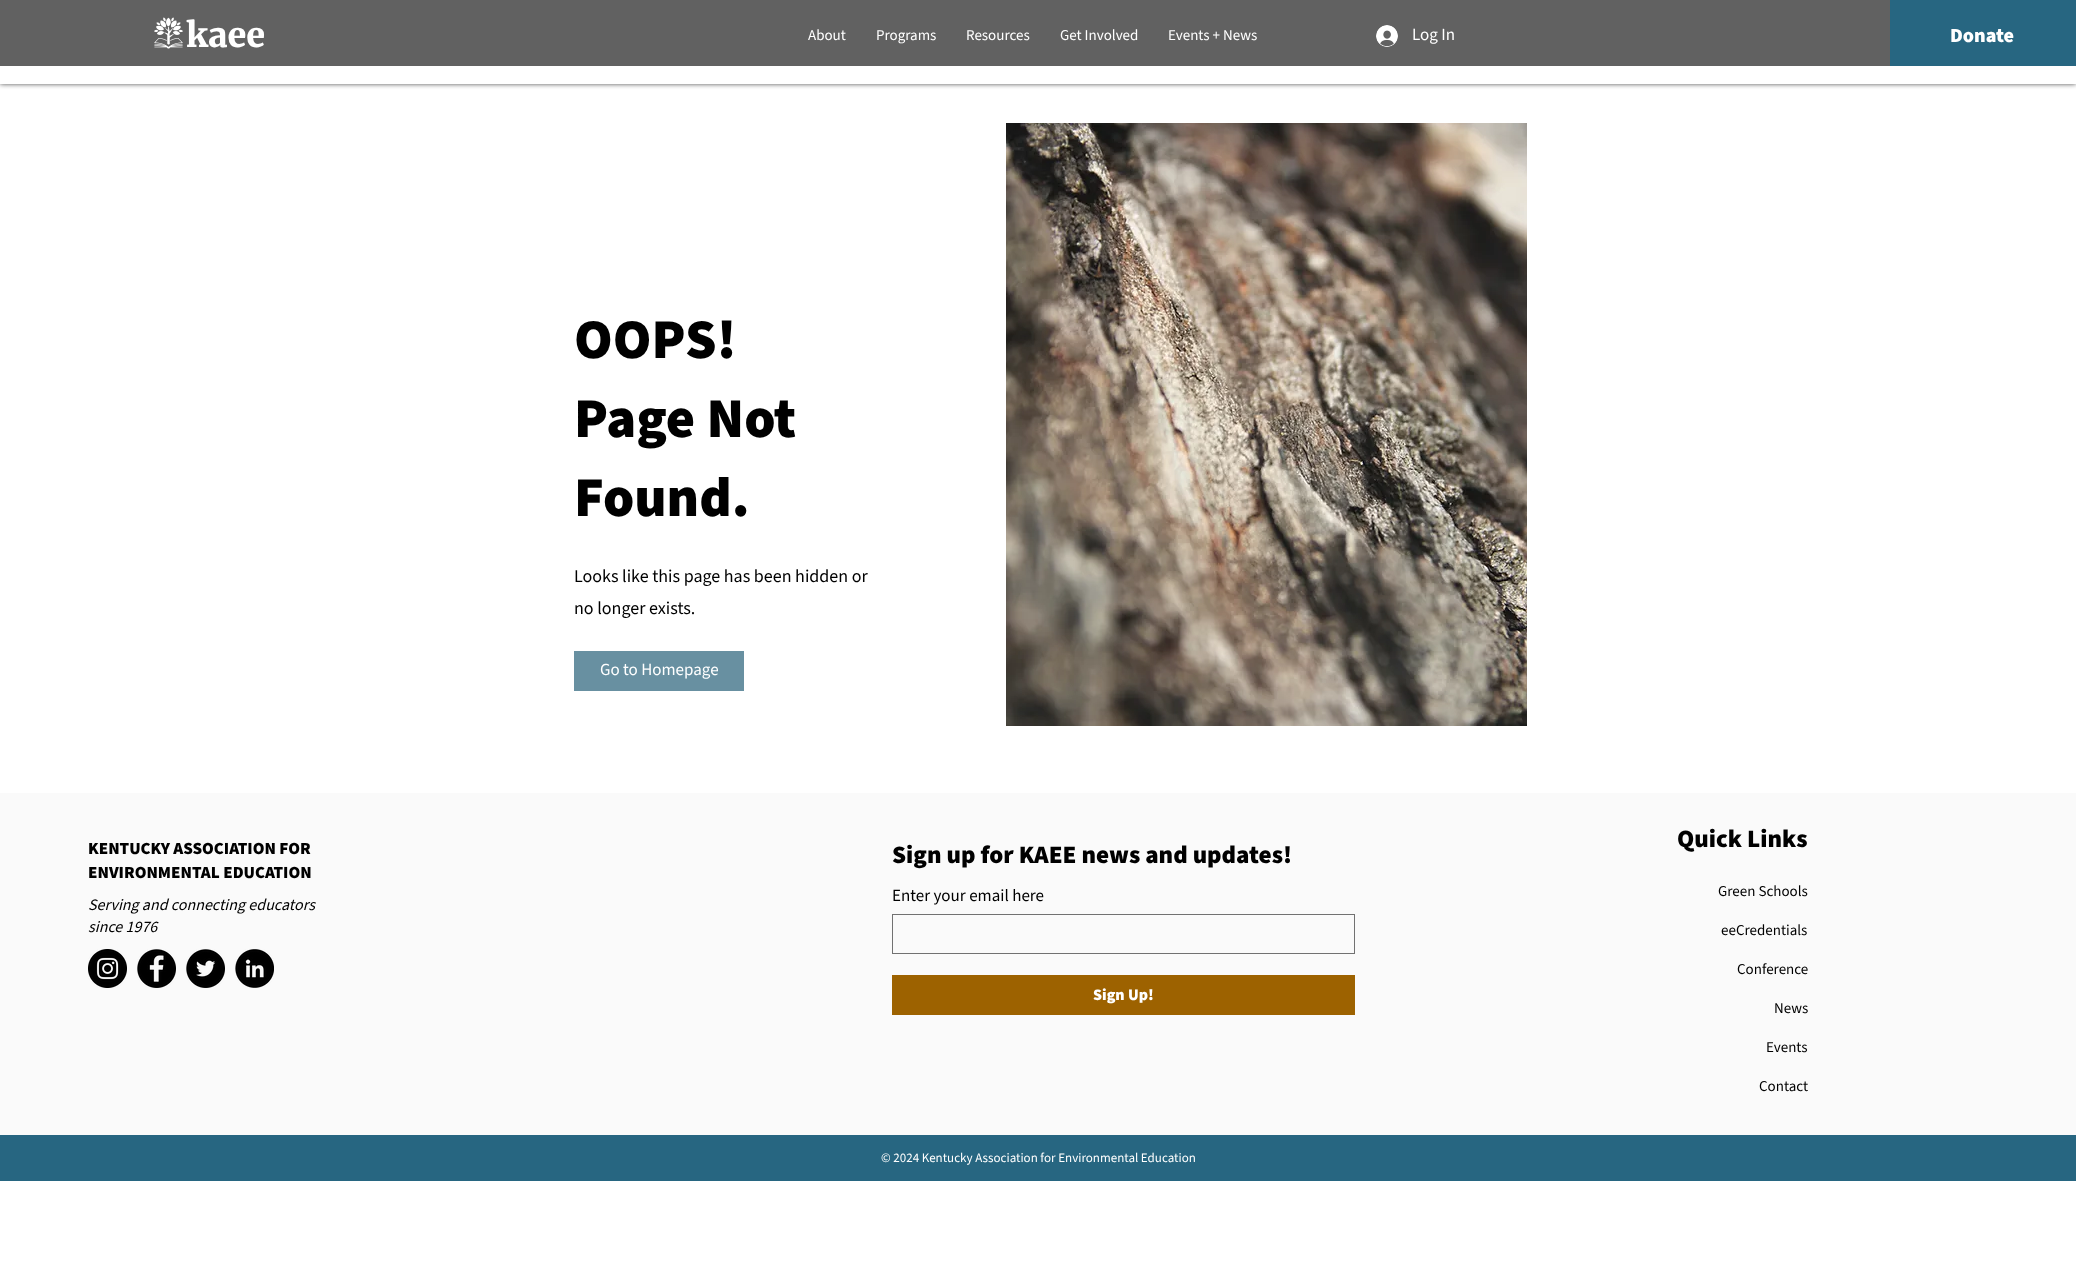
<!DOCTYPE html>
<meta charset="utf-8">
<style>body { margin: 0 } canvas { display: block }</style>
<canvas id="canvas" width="2076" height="1285"></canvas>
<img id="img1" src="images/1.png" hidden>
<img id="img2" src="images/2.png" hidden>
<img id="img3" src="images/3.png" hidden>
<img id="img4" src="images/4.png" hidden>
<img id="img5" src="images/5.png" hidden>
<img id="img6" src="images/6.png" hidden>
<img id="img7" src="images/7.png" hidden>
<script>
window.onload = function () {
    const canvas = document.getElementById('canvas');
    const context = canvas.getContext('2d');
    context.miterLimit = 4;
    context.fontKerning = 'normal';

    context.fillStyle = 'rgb(255, 255, 255)';
    context.fillRect(0, 0, 2076, 1285);
    context.fillStyle = 'rgba(0, 0, 0, 0.7)';
    context.filter = 'blur(2.5px)';
    context.beginPath();
    context.rect(0, 0, 2076, 84);
    context.fill();
    context.filter = 'none';
    context.fillStyle = 'rgb(255, 255, 255)';
    context.fillRect(0, 66, 2076, 18);
    context.fillStyle = 'rgb(97, 97, 97)';
    context.fillRect(0, 0, 1890, 66);
    context.drawImage(document.getElementById('img1'), 154, 17, 29, 32);
    context.drawImage(document.getElementById('img2'), 1376, 25, 22, 22);
    context.fillStyle = 'rgb(39, 102, 129)';
    context.fillRect(1890, 0, 186, 66);
    context.drawImage(document.getElementById('img3'), 1006, 123, 521, 603);
    context.fillStyle = 'rgb(104, 144, 161)';
    context.fillRect(574, 651, 170, 40);
    context.fillStyle = 'rgb(250, 250, 250)';
    context.fillRect(0, 793, 2076, 342);
    context.drawImage(document.getElementById('img4'), 88, 949, 39, 39);
    context.drawImage(document.getElementById('img5'), 137, 949, 39, 39);
    context.drawImage(document.getElementById('img6'), 186, 949, 39, 39);
    context.drawImage(document.getElementById('img7'), 235, 949, 39, 39);
    context.strokeStyle = 'rgb(113, 113, 113)';
    context.strokeRect(892.5, 914.5, 462, 39);
    context.fillStyle = 'rgb(157, 98, 0)';
    context.fillRect(892, 975, 463, 40);
    context.fillStyle = 'rgb(39, 102, 129)';
    context.fillRect(0, 1135, 2076, 46);
    context.font = '900 34px Merriweather';
    context.fillStyle = 'rgb(255, 255, 255)';
    context.fillText('kaee', 186, 47);
    context.font = '15px "Source Sans 3"';
    context.fillText('About', 808, 40);
    context.fillText('Programs', 876, 40);
    context.fillText('Resources', 966, 40);
    context.fillText('Get Involved', 1060, 40);
    context.fillText('Events + News', 1168, 40);
    context.font = '17px "Source Sans 3"';
    context.fillText('Log In', 1412, 40);
    context.font = '900 20px "Source Sans 3"';
    context.fillText('Donate', 1950, 42);
    context.font = '900 56px "Source Sans 3"';
    context.fillStyle = 'rgb(0, 0, 0)';
    context.fillText('OOPS!', 574, 358);
    context.fillText('Page Not', 574, 437);
    context.fillText('Found.', 574, 516);
    context.font = '18px "Source Sans 3"';
    context.fillText('Looks like this page has been hidden or', 574, 582);
    context.fillText('no longer exists.', 574, 614);
    context.font = '17px "Source Sans 3"';
    context.fillStyle = 'rgb(255, 255, 255)';
    context.fillText('Go to Homepage', 600, 675);
    context.font = '900 17px "Source Sans 3"';
    context.fillStyle = 'rgb(0, 0, 0)';
    context.fillText('KENTUCKY ASSOCIATION FOR', 88, 854);
    context.fillText('ENVIRONMENTAL EDUCATION', 88, 878);
    context.font = 'italic 16px "Source Sans 3"';
    context.fillText('Serving and connecting educators', 88, 910);
    context.fillText('since 1976', 88, 932);
    context.font = '900 25px "Source Sans 3"';
    context.fillText('Sign up for KAEE news and updates!', 892, 863);
    context.font = '17px "Source Sans 3"';
    context.fillText('Enter your email here', 892, 901);
    context.font = '900 16px "Source Sans 3"';
    context.fillStyle = 'rgb(255, 255, 255)';
    context.fillText('Sign Up!', 1093, 1000);
    context.font = '900 25px "Source Sans 3"';
    context.fillStyle = 'rgb(0, 0, 0)';
    context.fillText('Quick Links', 1677, 847);
    context.font = '15px "Source Sans 3"';
    context.fillText('Green Schools', 1718, 896);
    context.fillText('eeCredentials', 1721, 935);
    context.fillText('Conference', 1737, 974);
    context.fillText('News', 1774, 1013);
    context.fillText('Events', 1766, 1052);
    context.fillText('Contact', 1759, 1091);
    context.font = '13px "Source Sans 3"';
    context.fillStyle = 'rgb(255, 255, 255)';
    context.fillText('© 2024 Kentucky Association for Environmental Education', 881, 1162);
};
</script>
